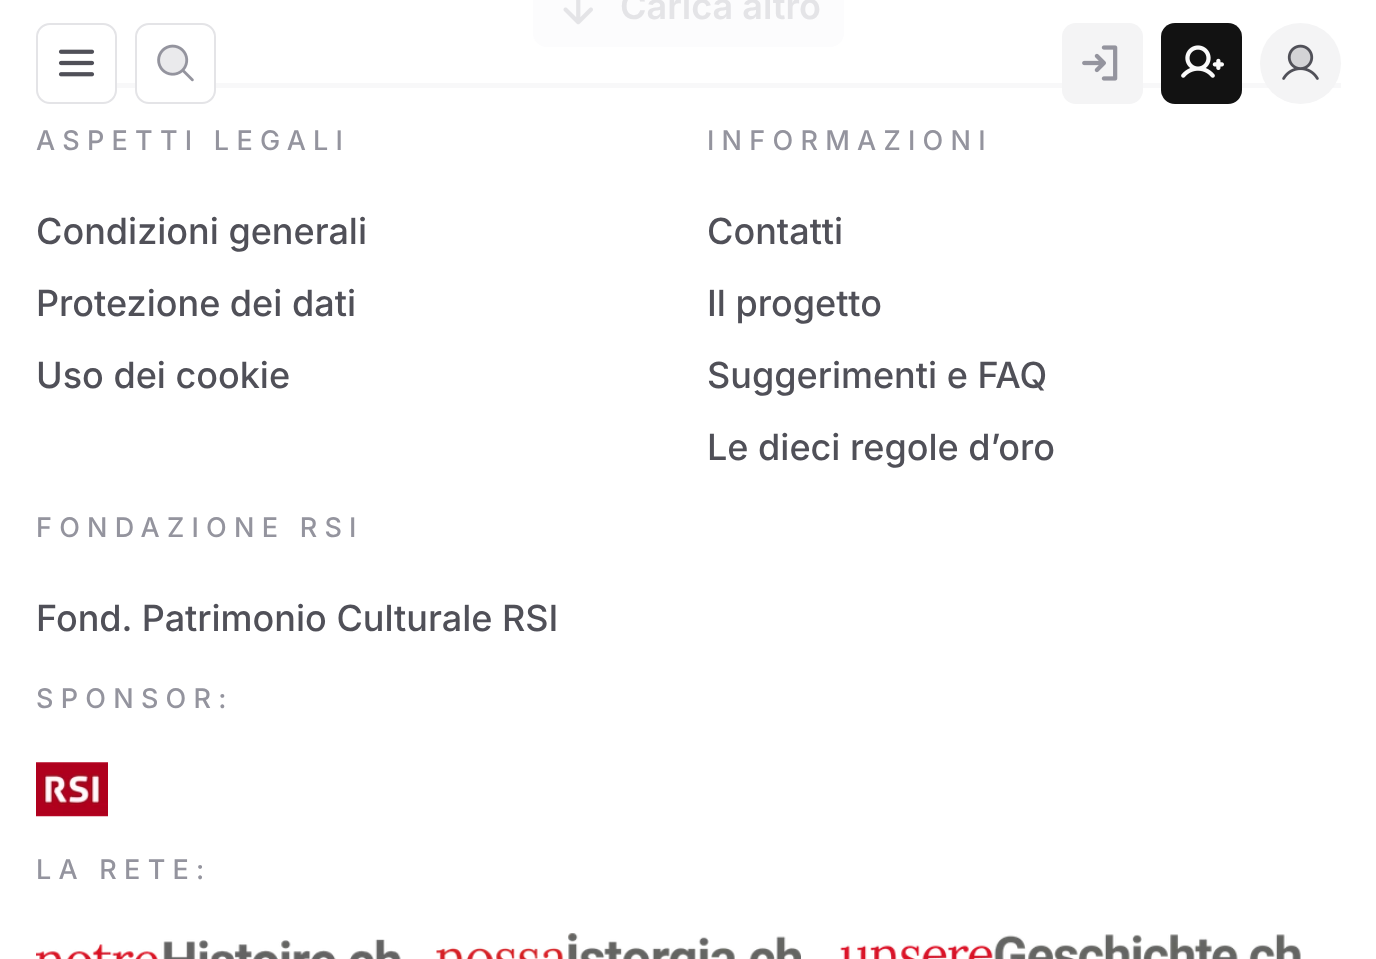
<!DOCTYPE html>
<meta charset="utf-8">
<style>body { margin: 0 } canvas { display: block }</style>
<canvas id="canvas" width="1376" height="959"></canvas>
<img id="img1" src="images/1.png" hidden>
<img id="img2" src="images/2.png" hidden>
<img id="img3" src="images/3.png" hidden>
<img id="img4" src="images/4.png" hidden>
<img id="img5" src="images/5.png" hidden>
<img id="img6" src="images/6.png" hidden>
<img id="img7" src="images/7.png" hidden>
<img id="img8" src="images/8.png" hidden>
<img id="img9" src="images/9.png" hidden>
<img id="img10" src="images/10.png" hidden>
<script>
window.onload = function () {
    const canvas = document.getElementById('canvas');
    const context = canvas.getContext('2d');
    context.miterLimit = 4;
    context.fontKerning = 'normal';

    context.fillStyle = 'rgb(255, 255, 255)';
    context.fillRect(0, 0, 1376, 959);
    context.fillStyle = 'rgb(252, 252, 253)';
    context.beginPath();
    context.roundRect(533, -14, 311, 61, 14);
    context.fill();
    context.drawImage(document.getElementById('img1'), 563, 0, 30, 25);
    context.beginPath();
    context.roundRect(37, 24, 79, 79, 13);
    context.strokeStyle = 'rgb(228, 228, 231)';
    context.lineWidth = 2;
    context.stroke();
    context.drawImage(document.getElementById('img2'), 58, 49, 37, 28);
    context.fillStyle = 'rgb(248, 248, 249)';
    context.fillRect(117, 83, 1224, 5);
    context.fillStyle = 'rgb(255, 255, 255)';
    context.beginPath();
    context.roundRect(136, 24, 79, 79, 13);
    context.fill();
    context.stroke();
    context.drawImage(document.getElementById('img3'), 157, 44, 37, 38);
    context.fillStyle = 'rgb(244, 244, 245)';
    context.beginPath();
    context.roundRect(1062, 23, 81, 81, 14);
    context.fill();
    context.drawImage(document.getElementById('img4'), 1082, 45, 36, 36);
    context.fillStyle = 'rgb(18, 18, 18)';
    context.beginPath();
    context.roundRect(1161, 23, 81, 81, 14);
    context.fill();
    context.drawImage(document.getElementById('img5'), 1181, 45, 43, 33);
    context.fillStyle = 'rgb(244, 244, 245)';
    context.beginPath();
    context.arc(1300.5, 63.5, 40.5, 0, 2 * Math.PI);
    context.fill();
    context.drawImage(document.getElementById('img6'), 1282, 44, 37, 36);
    context.drawImage(document.getElementById('img7'), 36, 762, 72, 55);
    context.drawImage(document.getElementById('img8'), 36, 939, 365, 20);
    context.drawImage(document.getElementById('img9'), 436, 933, 365, 26);
    context.drawImage(document.getElementById('img10'), 840, 934, 461, 25);
    context.font = '600 36px Inter';
    context.fillStyle = 'rgb(228, 228, 231)';
    context.fillText('Carica altro', 620, 19);
    context.letterSpacing = '7.25px';
    context.font = '500 27px Inter';
    context.fillStyle = 'rgb(148, 148, 158)';
    context.fillText('ASPETTI LEGALI', 36, 150);
    context.letterSpacing = '0px';
    context.font = '500 36px Inter';
    context.fillStyle = 'rgb(80, 80, 88)';
    context.fillText('Condizioni generali', 36, 244);
    context.fillText('Protezione dei dati', 36, 316);
    context.fillText('Uso dei cookie', 36, 388);
    context.letterSpacing = '7.25px';
    context.font = '500 27px Inter';
    context.fillStyle = 'rgb(148, 148, 158)';
    context.fillText('INFORMAZIONI', 707, 150);
    context.letterSpacing = '0px';
    context.font = '500 36px Inter';
    context.fillStyle = 'rgb(80, 80, 88)';
    context.fillText('Contatti', 707, 244);
    context.fillText('Il progetto', 707, 316);
    context.fillText('Suggerimenti e FAQ', 707, 388);
    context.fillText('Le dieci regole d’oro', 707, 460);
    context.letterSpacing = '7.25px';
    context.font = '500 27px Inter';
    context.fillStyle = 'rgb(148, 148, 158)';
    context.fillText('FONDAZIONE RSI', 36, 537);
    context.letterSpacing = '0px';
    context.font = '500 36px Inter';
    context.fillStyle = 'rgb(80, 80, 88)';
    context.fillText('Fond. Patrimonio Culturale RSI', 36, 631);
    context.letterSpacing = '7.25px';
    context.font = '500 27px Inter';
    context.fillStyle = 'rgb(148, 148, 158)';
    context.fillText('SPONSOR:', 36, 708);
    context.fillText('LA RETE:', 36, 879);
};
</script>
